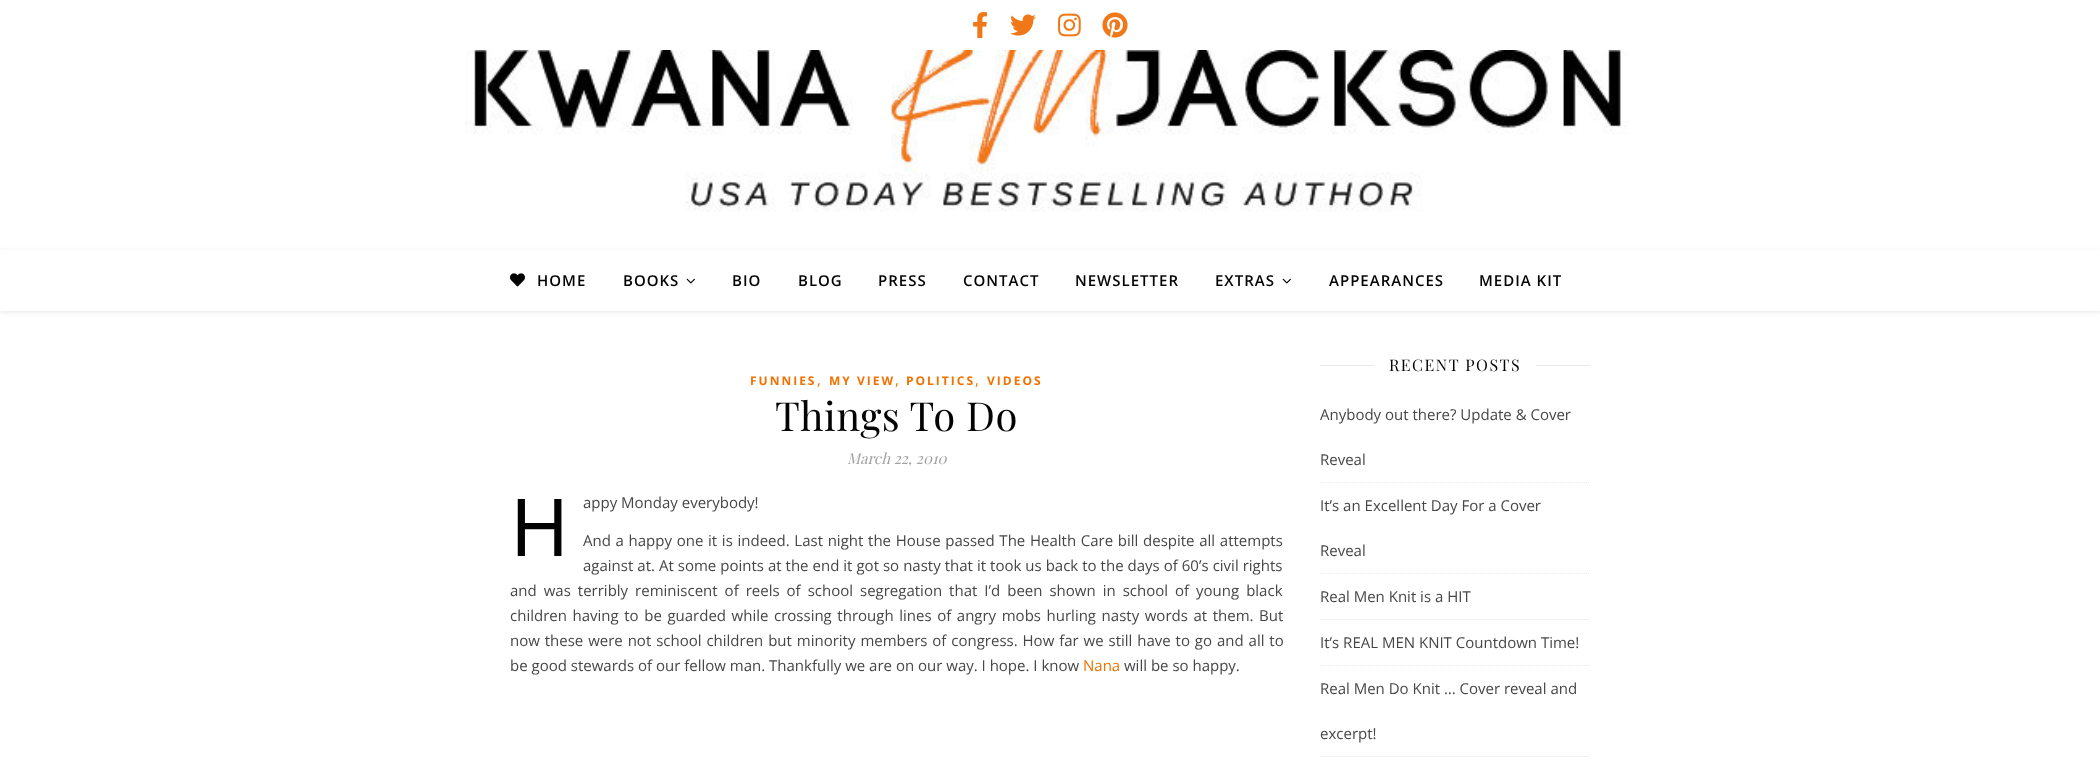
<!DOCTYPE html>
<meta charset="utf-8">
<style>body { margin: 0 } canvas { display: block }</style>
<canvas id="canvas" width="2100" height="766"></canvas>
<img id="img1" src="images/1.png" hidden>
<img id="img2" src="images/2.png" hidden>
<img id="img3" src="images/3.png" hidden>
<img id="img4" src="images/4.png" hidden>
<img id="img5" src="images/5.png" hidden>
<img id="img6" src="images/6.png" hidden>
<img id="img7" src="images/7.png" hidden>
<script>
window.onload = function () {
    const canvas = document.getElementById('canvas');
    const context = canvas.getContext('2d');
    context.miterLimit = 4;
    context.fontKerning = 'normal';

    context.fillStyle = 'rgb(255, 255, 255)';
    context.fillRect(0, 0, 2100, 766);
    context.drawImage(document.getElementById('img1'), 973, 12, 15, 26);
    context.drawImage(document.getElementById('img2'), 1010, 14, 26, 22);
    context.drawImage(document.getElementById('img3'), 1058, 13, 23, 24);
    context.drawImage(document.getElementById('img4'), 1102, 12, 26, 26);
    context.drawImage(document.getElementById('img5'), 465, 50, 1164, 162);
    context.save();
    context.beginPath();
    context.moveTo(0, 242);
    context.lineTo(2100, 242);
    context.lineTo(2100, 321);
    context.lineTo(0, 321);
    context.closePath();
    context.moveTo(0, 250);
    context.lineTo(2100, 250);
    context.lineTo(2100, 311);
    context.lineTo(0, 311);
    context.closePath();
    context.clip('evenodd');
    context.fillStyle = 'rgba(0, 0, 0, 0.1)';
    context.filter = 'blur(2.5px)';
    context.beginPath();
    context.rect(0, 251, 2100, 61);
    context.fill();
    context.filter = 'none';
    context.restore();
    context.drawImage(document.getElementById('img6'), 510, 273, 15, 14);
    context.drawImage(document.getElementById('img7'), 686, 278, 9, 6);
    context.drawImage(document.getElementById('img7'), 1282, 278, 9, 6);
    context.fillStyle = 'rgb(232, 232, 232)';
    context.fillRect(1320, 365, 54, 1);
    context.fillRect(1536, 365, 54, 1);
    context.beginPath();
    context.moveTo(1320, 482.5);
    context.lineTo(1590, 482.5);
    context.strokeStyle = 'rgb(232, 232, 232)';
    context.setLineDash([1, 1]);
    context.stroke();
    context.beginPath();
    context.moveTo(1320, 573.5);
    context.lineTo(1590, 573.5);
    context.stroke();
    context.beginPath();
    context.moveTo(1320, 619.5);
    context.lineTo(1590, 619.5);
    context.stroke();
    context.beginPath();
    context.moveTo(1320, 665.5);
    context.lineTo(1590, 665.5);
    context.stroke();
    context.beginPath();
    context.moveTo(1320, 756.5);
    context.lineTo(1590, 756.5);
    context.stroke();
    context.letterSpacing = '1px';
    context.font = '600 15px Open Sans';
    context.fillStyle = 'rgb(3, 3, 3)';
    context.fillText('HOME', 537, 286);
    context.fillText('BOOKS', 623, 286);
    context.fillText('BIO', 732, 286);
    context.fillText('BLOG', 798, 286);
    context.fillText('PRESS', 878, 286);
    context.fillText('CONTACT', 963, 286);
    context.fillText('NEWSLETTER', 1075, 286);
    context.fillText('EXTRAS', 1215, 286);
    context.fillText('APPEARANCES', 1329, 286);
    context.fillText('MEDIA KIT', 1479, 286);
    context.letterSpacing = '2px';
    context.font = 'bold 12px Open Sans';
    context.fillStyle = 'rgb(242, 113, 0)';
    context.fillText('FUNNIES', 750, 385);
    context.letterSpacing = '0px';
    context.font = '15px Open Sans';
    context.fillText(',', 817, 385);
    context.letterSpacing = '2px';
    context.font = 'bold 12px Open Sans';
    context.fillText('MY VIEW', 829, 385);
    context.letterSpacing = '0px';
    context.font = '15px Open Sans';
    context.fillText(',', 895, 385);
    context.letterSpacing = '2px';
    context.font = 'bold 12px Open Sans';
    context.fillText('POLITICS', 906, 385);
    context.letterSpacing = '0px';
    context.font = '15px Open Sans';
    context.fillText(',', 975, 385);
    context.letterSpacing = '2px';
    context.font = 'bold 12px Open Sans';
    context.fillText('VIDEOS', 987, 385);
    context.letterSpacing = '0.5px';
    context.font = '40px Playfair Display';
    context.fillStyle = 'rgb(3, 3, 3)';
    context.fillText('Things To Do', 775, 431);
    context.letterSpacing = '0px';
    context.font = 'italic 15px Playfair Display';
    context.fillStyle = 'rgb(161, 161, 161)';
    context.fillText('March 22, 2010', 847, 464);
    context.font = '80px Noto Sans';
    context.fillStyle = 'rgb(3, 3, 3)';
    context.fillText('H', 510, 556);
    context.font = '15px Open Sans';
    context.fillStyle = 'rgb(70, 70, 70)';
    context.fillText('appy Monday everybody!', 583, 508);
    context.wordSpacing = '0.8px';
    context.fillText('And a happy one it is indeed. Last night the House passed The Health Care bill despite all attempts', 583, 546);
    context.wordSpacing = '0.1px';
    context.fillText('against at. At some points at the end it got so nasty that it took us back to the days of 60’s civil rights', 583, 571);
    context.wordSpacing = '3.1px';
    context.fillText('and was terribly reminiscent of reels of school segregation that I’d been shown in school of young black', 510, 596);
    context.wordSpacing = '1.7px';
    context.fillText('children having to be guarded while crossing through lines of angry mobs hurling nasty words at them. But', 510, 621);
    context.wordSpacing = '1px';
    context.fillText('now these were not school children but minority members of congress. How far we still have to go and all to', 510, 646);
    context.wordSpacing = '0px';
    context.fillText('be good stewards of our fellow man. Thankfully we are on our way. I hope. I know', 510, 671);
    context.fillStyle = 'rgb(242, 113, 0)';
    context.fillText('Nana', 1083, 671);
    context.fillStyle = 'rgb(70, 70, 70)';
    context.fillText('will be so happy.', 1124, 671);
    context.letterSpacing = '1.5px';
    context.font = '16px Playfair Display';
    context.fillStyle = 'rgb(3, 3, 3)';
    context.fillText('RECENT POSTS', 1389, 371);
    context.letterSpacing = '0px';
    context.font = '15px Open Sans';
    context.fillStyle = 'rgb(70, 70, 70)';
    context.fillText('Anybody out there? Update & Cover', 1320, 420);
    context.fillText('Reveal', 1320, 465);
    context.fillText('It’s an Excellent Day For a Cover', 1320, 511);
    context.fillText('Reveal', 1320, 556);
    context.fillText('Real Men Knit is a HIT', 1320, 602);
    context.fillText('It’s REAL MEN KNIT Countdown Time!', 1320, 648);
    context.fillText('Real Men Do Knit … Cover reveal and', 1320, 694);
    context.fillText('excerpt!', 1320, 739);
};
</script>
